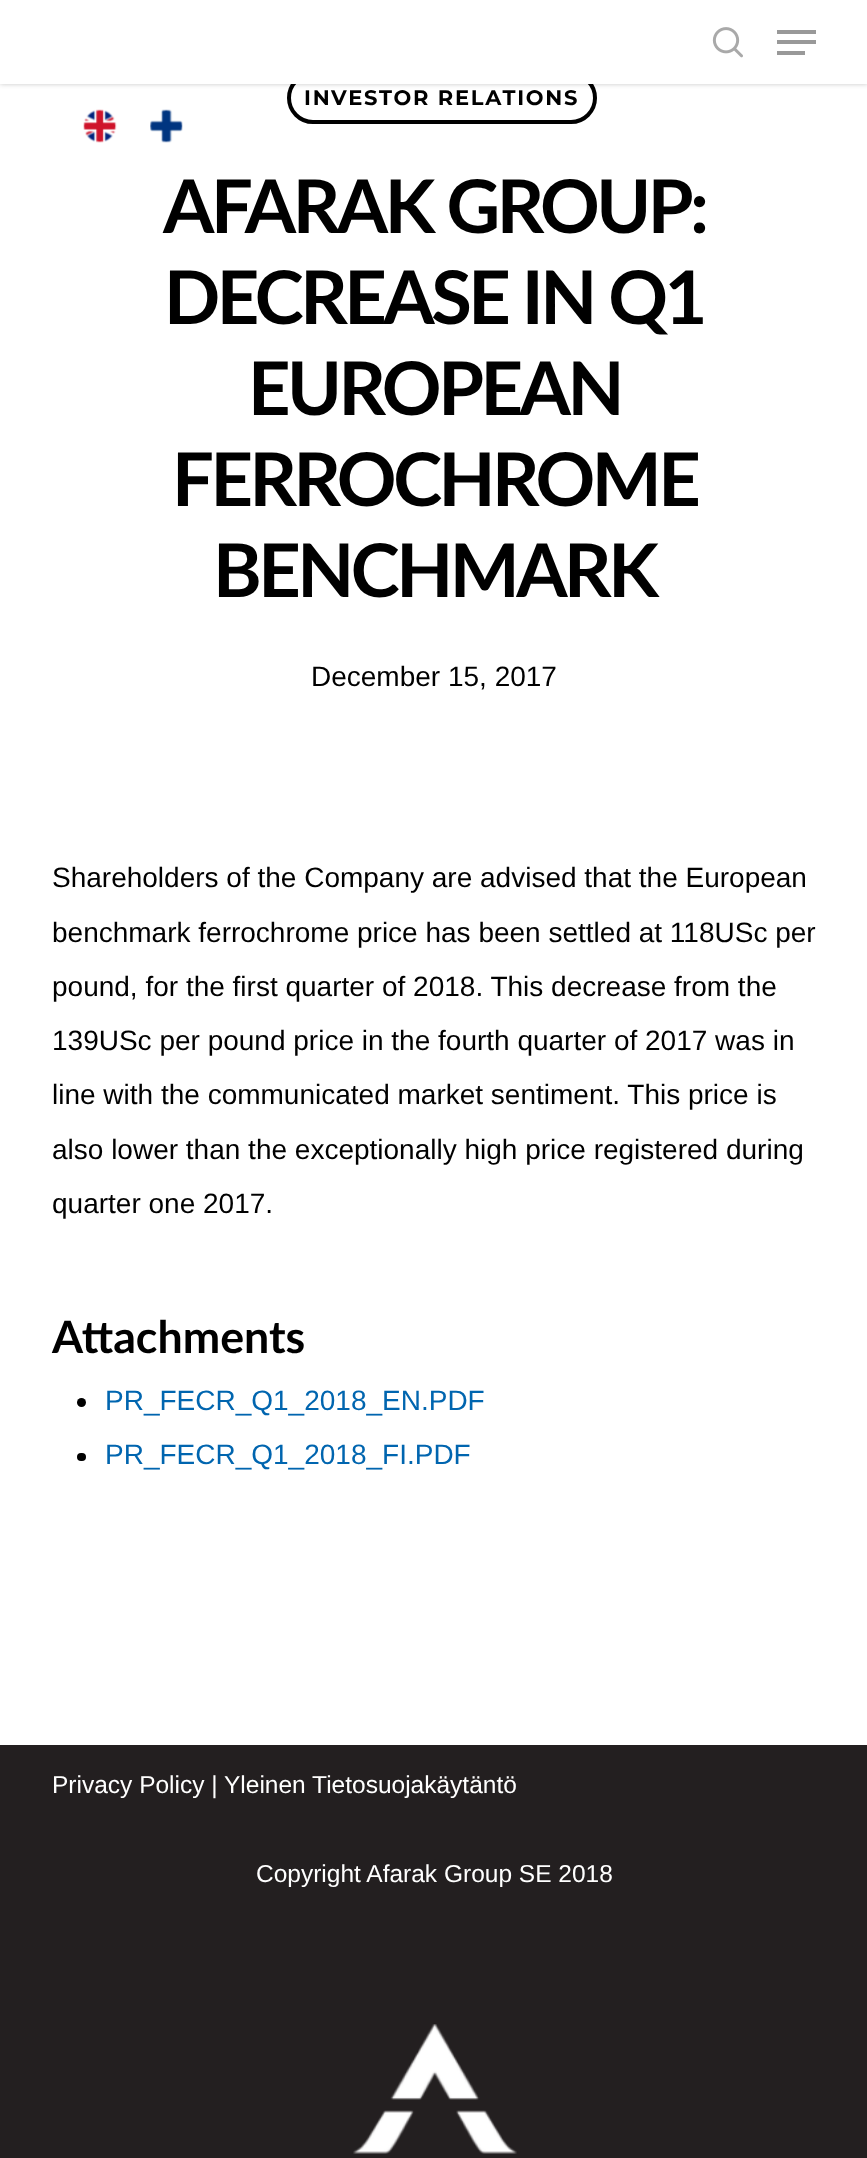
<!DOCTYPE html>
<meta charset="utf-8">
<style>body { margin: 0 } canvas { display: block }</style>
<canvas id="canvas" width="867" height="2158"></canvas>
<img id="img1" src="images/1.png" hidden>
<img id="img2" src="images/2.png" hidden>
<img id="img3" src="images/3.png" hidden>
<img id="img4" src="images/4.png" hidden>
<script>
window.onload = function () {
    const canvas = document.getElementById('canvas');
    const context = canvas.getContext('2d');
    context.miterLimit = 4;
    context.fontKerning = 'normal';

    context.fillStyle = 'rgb(255, 255, 255)';
    context.fillRect(0, 0, 867, 2158);
    context.beginPath();
    context.roundRect(289, 74, 306, 48, 24);
    context.strokeStyle = 'rgb(0, 0, 0)';
    context.lineWidth = 4;
    context.stroke();
    context.fillStyle = 'rgba(0, 0, 0, 0.22)';
    context.filter = 'blur(2.5px)';
    context.beginPath();
    context.rect(0, 0, 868, 84);
    context.fill();
    context.filter = 'none';
    context.fillStyle = 'rgb(255, 255, 255)';
    context.fillRect(0, 0, 867, 84);
    context.drawImage(document.getElementById('img1'), 712, 27, 31, 31);
    context.fillStyle = 'rgb(153, 153, 153)';
    context.fillRect(777, 30, 39, 4);
    context.fillRect(777, 51, 28, 4);
    context.fillRect(777, 40, 39, 4);
    context.drawImage(document.getElementById('img2'), 83, 109, 34, 34);
    context.drawImage(document.getElementById('img3'), 150, 109, 33, 34);
    context.fillStyle = 'rgb(0, 0, 0)';
    context.beginPath();
    context.arc(81.5, 1402.5, 4.5, 0, 2 * Math.PI);
    context.fill();
    context.beginPath();
    context.roundRect(77, 1453, 9, 8, 4);
    context.fill();
    context.fillStyle = 'rgb(35, 31, 32)';
    context.fillRect(0, 1745, 867, 413);
    context.drawImage(document.getElementById('img4'), 353, 2024, 164, 130);
    context.letterSpacing = '1.75px';
    context.font = 'bold 21px Montserrat';
    context.fillStyle = 'rgb(0, 0, 0)';
    context.fillText('INVESTOR RELATIONS', 304, 105);
    context.letterSpacing = '-3.5px';
    context.font = 'bold 74px Lato';
    context.fillText('AFARAK GROUP:', 163, 233);
    context.fillText('DECREASE IN Q1', 164, 324);
    context.fillText('EUROPEAN', 248, 415);
    context.fillText('FERROCHROME', 172, 506);
    context.fillText('BENCHMARK', 213, 597);
    context.letterSpacing = '0px';
    context.font = '28px Liberation Sans';
    context.fillText('December 15, 2017', 311, 686);
    context.fillText('Shareholders of the Company are advised that the European', 52, 887);
    context.fillText('benchmark ferrochrome price has been settled at 118USc per', 52, 942);
    context.fillText('pound, for the first quarter of 2018. This decrease from the', 52, 996);
    context.fillText('139USc per pound price in the fourth quarter of 2017 was in', 52, 1050);
    context.fillText('line with the communicated market sentiment. This price is', 52, 1104);
    context.fillText('also lower than the exceptionally high price registered during', 52, 1159);
    context.fillText('quarter one 2017.', 52, 1213);
    context.font = 'bold 44.75px Lato';
    context.fillText('Attachments', 52, 1353);
    context.font = '28px Liberation Sans';
    context.fillStyle = 'rgb(0, 101, 175)';
    context.fillText('PR_FECR_Q1_2018_EN.PDF', 105, 1410);
    context.fillText('PR_FECR_Q1_2018_FI.PDF', 105, 1464);
    context.font = '24.5px Liberation Sans';
    context.fillStyle = 'rgb(255, 255, 255)';
    context.fillText('Privacy Policy |', 52, 1793);
    context.fillText('Yleinen Tietosuojakäytäntö', 224, 1793);
    context.fillText('Copyright Afarak Group SE 2018', 256, 1882);
};
</script>
